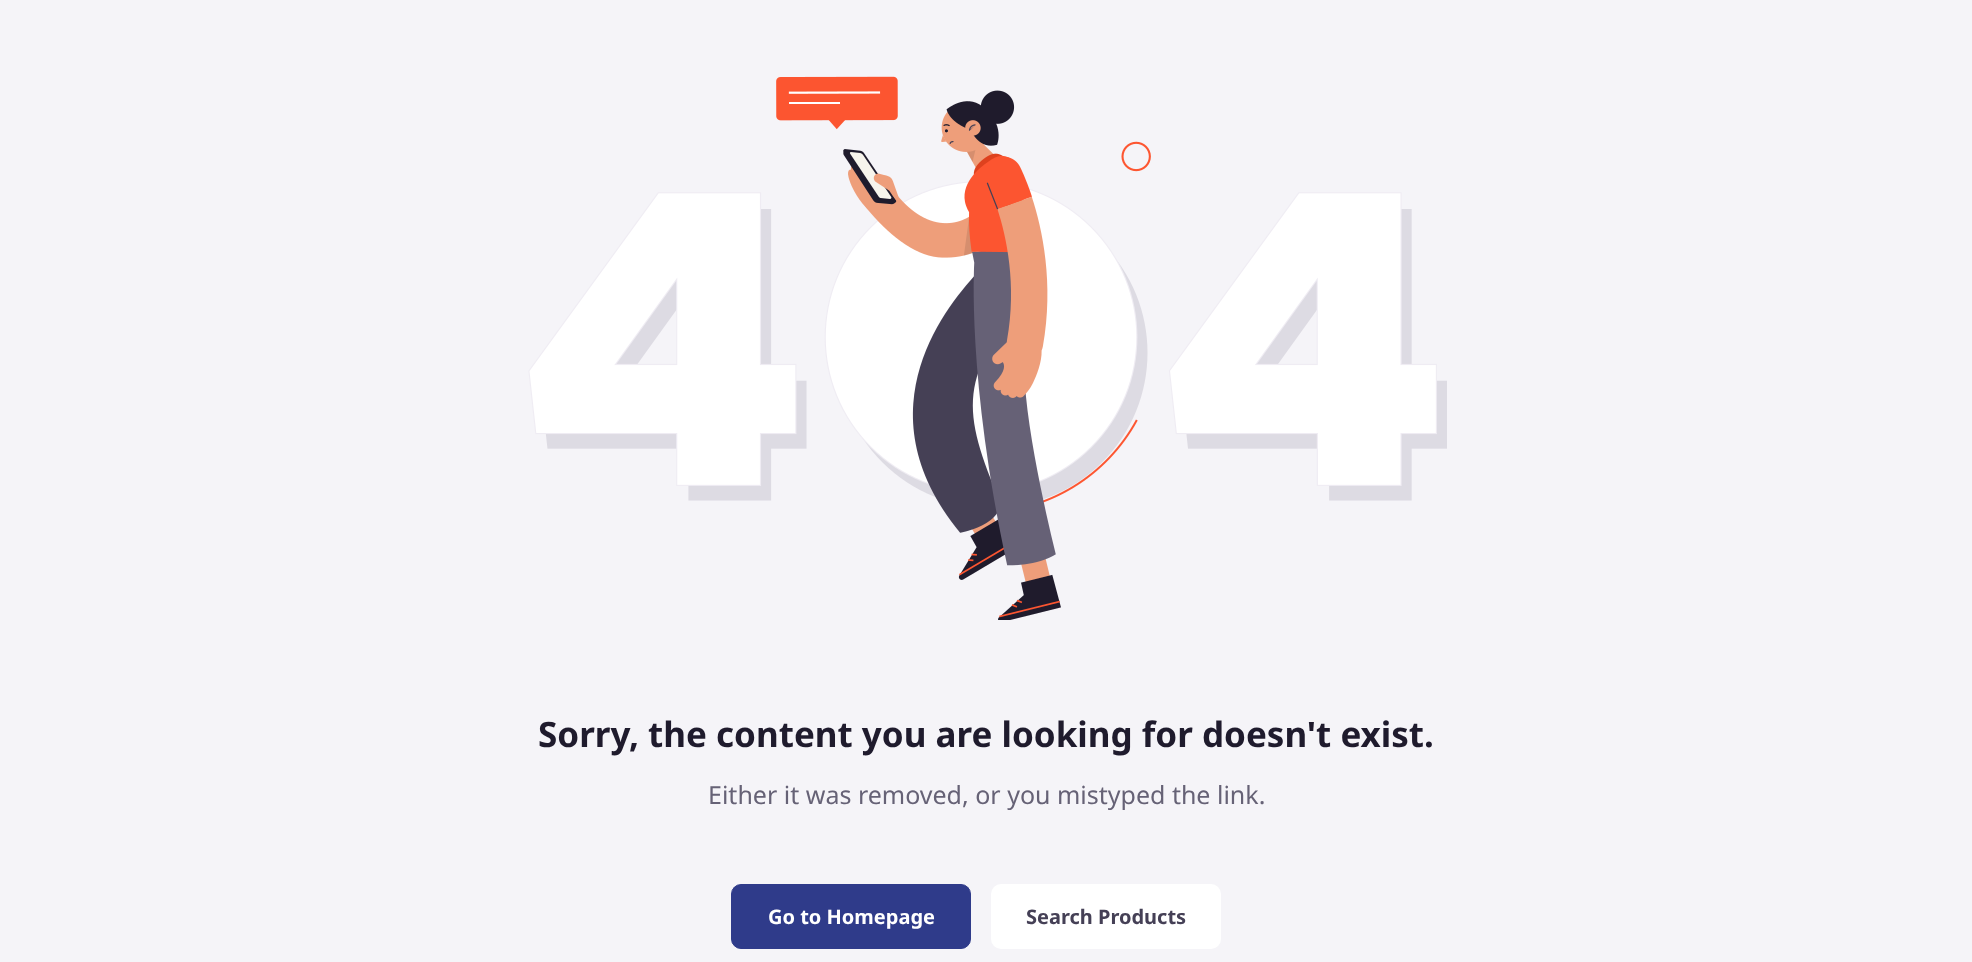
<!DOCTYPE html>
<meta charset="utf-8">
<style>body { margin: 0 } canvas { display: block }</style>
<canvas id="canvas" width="1972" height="962"></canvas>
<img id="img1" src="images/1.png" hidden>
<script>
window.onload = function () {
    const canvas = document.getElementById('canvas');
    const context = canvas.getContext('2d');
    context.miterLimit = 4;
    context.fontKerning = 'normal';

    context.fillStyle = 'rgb(245, 244, 248)';
    context.fillRect(0, 0, 1972, 962);
    context.drawImage(document.getElementById('img1'), 528, 76, 919, 544);
    context.fillStyle = 'rgb(47, 59, 138)';
    context.beginPath();
    context.roundRect(731.5, 884.5, 239, 64, 9.5);
    context.fill();
    context.strokeStyle = 'rgb(47, 59, 138)';
    context.stroke();
    context.fillStyle = 'rgb(255, 255, 255)';
    context.beginPath();
    context.roundRect(991, 884, 230, 65, 10);
    context.fill();
    context.font = 'bold 35px Noto Sans';
    context.fillStyle = 'rgb(31, 27, 45)';
    context.fillText('Sorry, the content you are looking for doesn\'t exist.', 538, 747);
    context.font = '25px Noto Sans';
    context.fillStyle = 'rgb(102, 98, 118)';
    context.fillText('Either it was removed, or you mistyped the link.', 708, 804);
    context.font = 'bold 20px Noto Sans';
    context.fillStyle = 'rgb(255, 255, 255)';
    context.fillText('Go to Homepage', 768, 924);
    context.fillStyle = 'rgb(69, 64, 86)';
    context.fillText('Search Products', 1026, 924);
};
</script>
